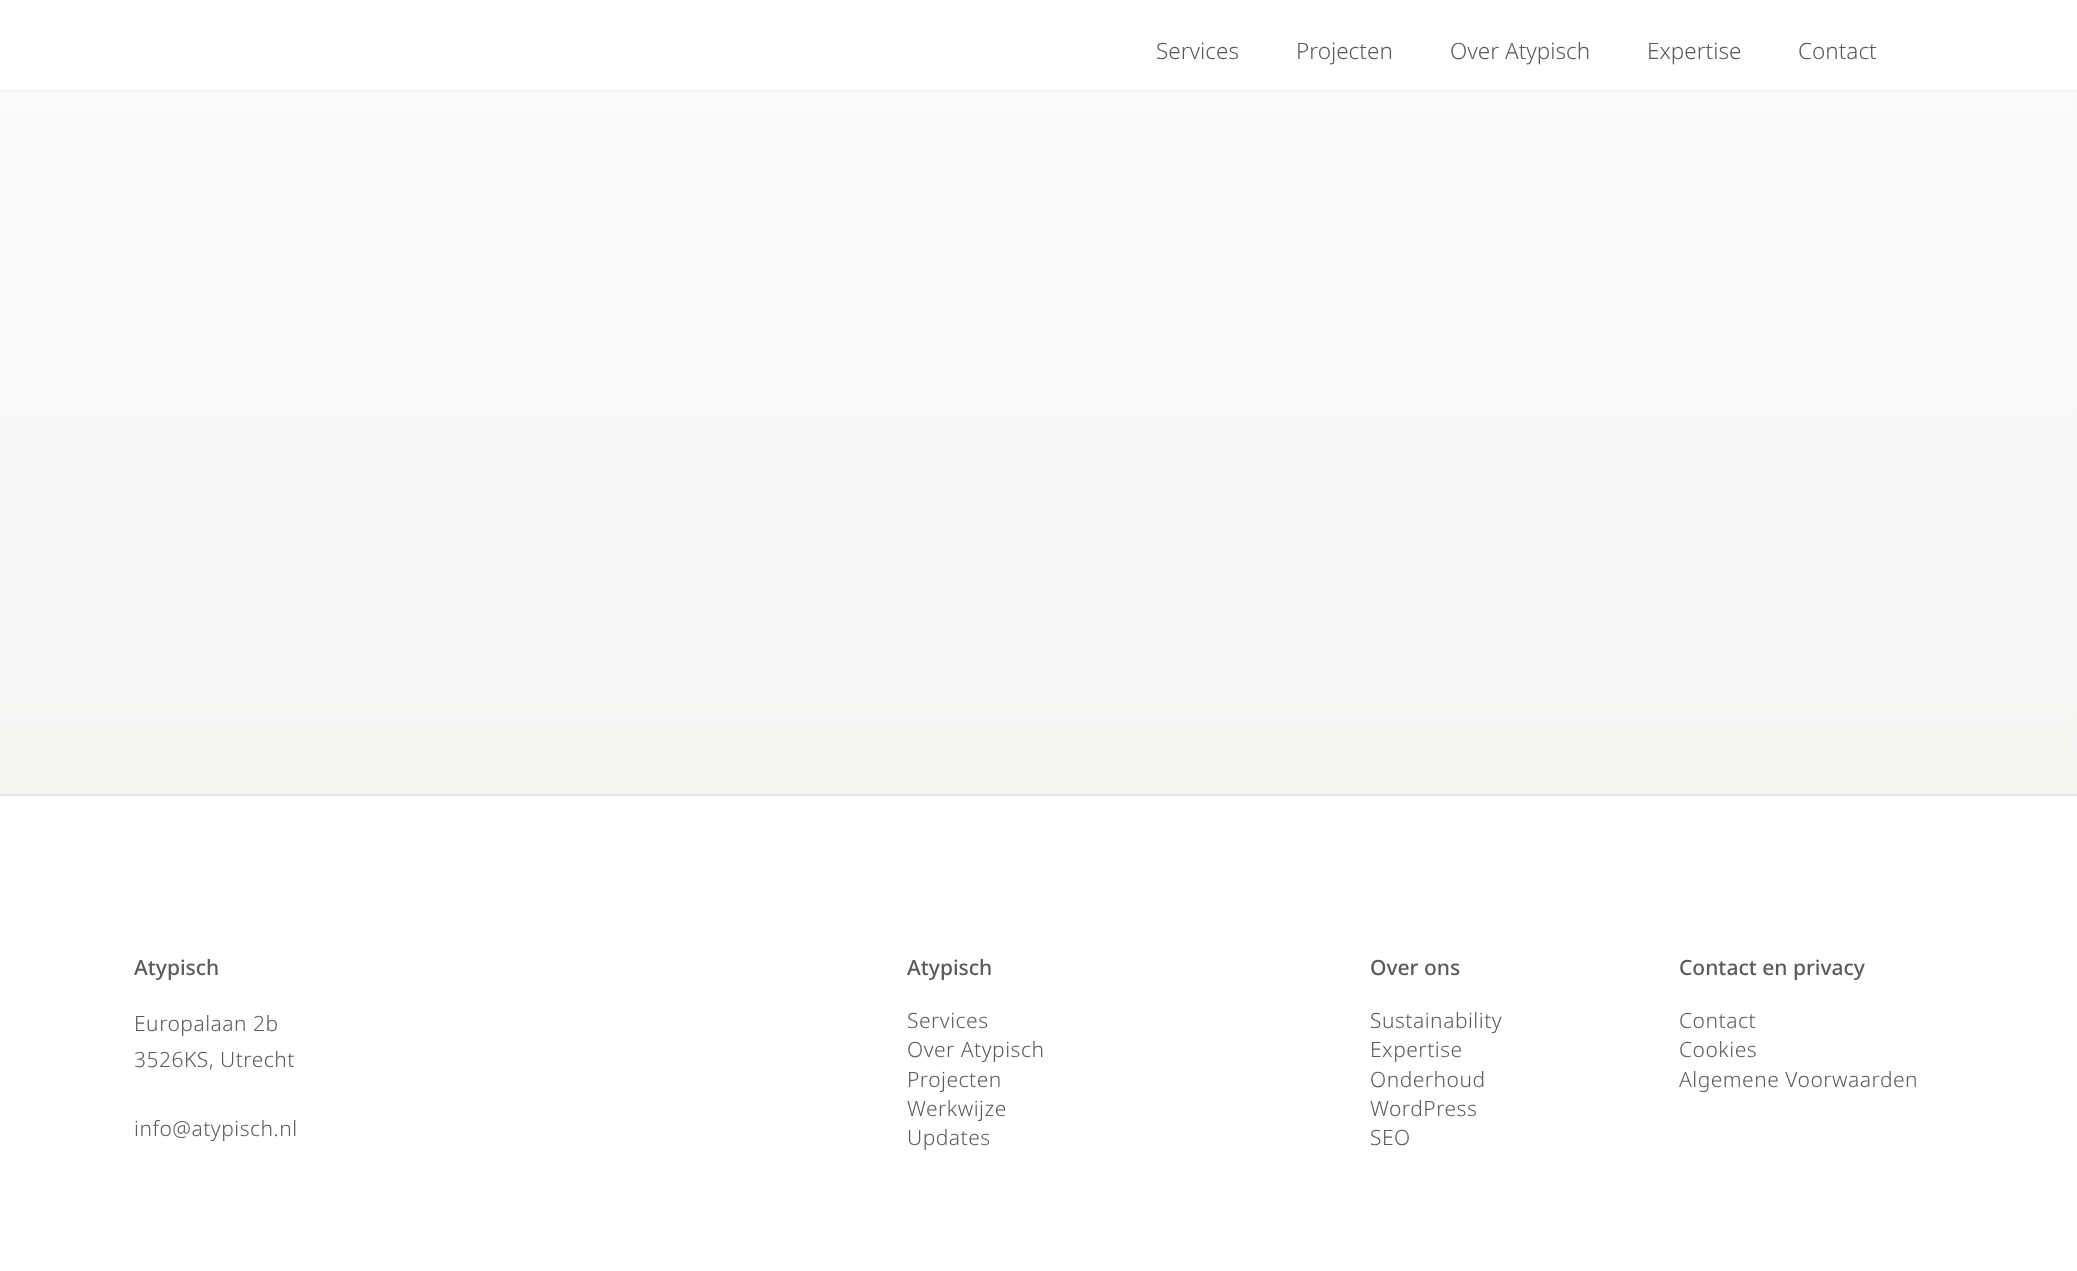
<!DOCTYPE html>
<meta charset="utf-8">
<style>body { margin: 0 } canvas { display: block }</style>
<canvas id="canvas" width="2077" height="1271"></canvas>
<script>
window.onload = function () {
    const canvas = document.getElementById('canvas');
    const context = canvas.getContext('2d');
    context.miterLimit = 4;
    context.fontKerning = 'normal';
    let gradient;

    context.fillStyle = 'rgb(255, 255, 255)';
    context.fillRect(0, 0, 2077, 1271);
    context.fillStyle = 'rgb(244, 244, 244)';
    context.fillRect(0, 90, 2077, 2);
    gradient = context.createLinearGradient(1039, 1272, 1039, -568);
    gradient.addColorStop(0, 'rgb(242, 242, 239)');
    gradient.addColorStop(1, 'rgb(255, 255, 255)');
    context.fillStyle = gradient;
    context.fillRect(0, 92, 2077, 702);
    context.fillStyle = 'rgb(225, 227, 231)';
    context.fillRect(0, 794, 2077, 2);
    context.font = '300 22.5px Noto Sans';
    context.fillStyle = 'rgb(90, 90, 90)';
    context.fillText('Services', 1156, 59);
    context.fillText('Projecten', 1296, 59);
    context.fillText('Over Atypisch', 1450, 59);
    context.fillText('Expertise', 1647, 59);
    context.fillText('Contact', 1798, 59);
    context.font = '500 21px Noto Sans';
    context.fillText('Atypisch', 134, 975);
    context.letterSpacing = '0.5px';
    context.font = '300 21px Noto Sans';
    context.fillText('Europalaan 2b', 134, 1031);
    context.fillText('3526KS, Utrecht', 134, 1067);
    context.fillText('info@atypisch.nl', 134, 1136);
    context.letterSpacing = '0px';
    context.font = '500 21px Noto Sans';
    context.fillText('Atypisch', 907, 975);
    context.letterSpacing = '0.5px';
    context.font = '300 21px Noto Sans';
    context.fillText('Services', 907, 1028);
    context.fillText('Over Atypisch', 907, 1057);
    context.fillText('Projecten', 907, 1087);
    context.fillText('Werkwijze', 907, 1116);
    context.fillText('Updates', 907, 1145);
    context.letterSpacing = '0px';
    context.font = '500 21px Noto Sans';
    context.fillText('Over ons', 1370, 975);
    context.letterSpacing = '0.5px';
    context.font = '300 21px Noto Sans';
    context.fillText('Sustainability', 1370, 1028);
    context.fillText('Expertise', 1370, 1057);
    context.fillText('Onderhoud', 1370, 1087);
    context.fillText('WordPress', 1370, 1116);
    context.fillText('SEO', 1370, 1145);
    context.letterSpacing = '0px';
    context.font = '500 21px Noto Sans';
    context.fillText('Contact en privacy', 1679, 975);
    context.letterSpacing = '0.5px';
    context.font = '300 21px Noto Sans';
    context.fillText('Contact', 1679, 1028);
    context.fillText('Cookies', 1679, 1057);
    context.fillText('Algemene Voorwaarden', 1679, 1087);
};
</script>
